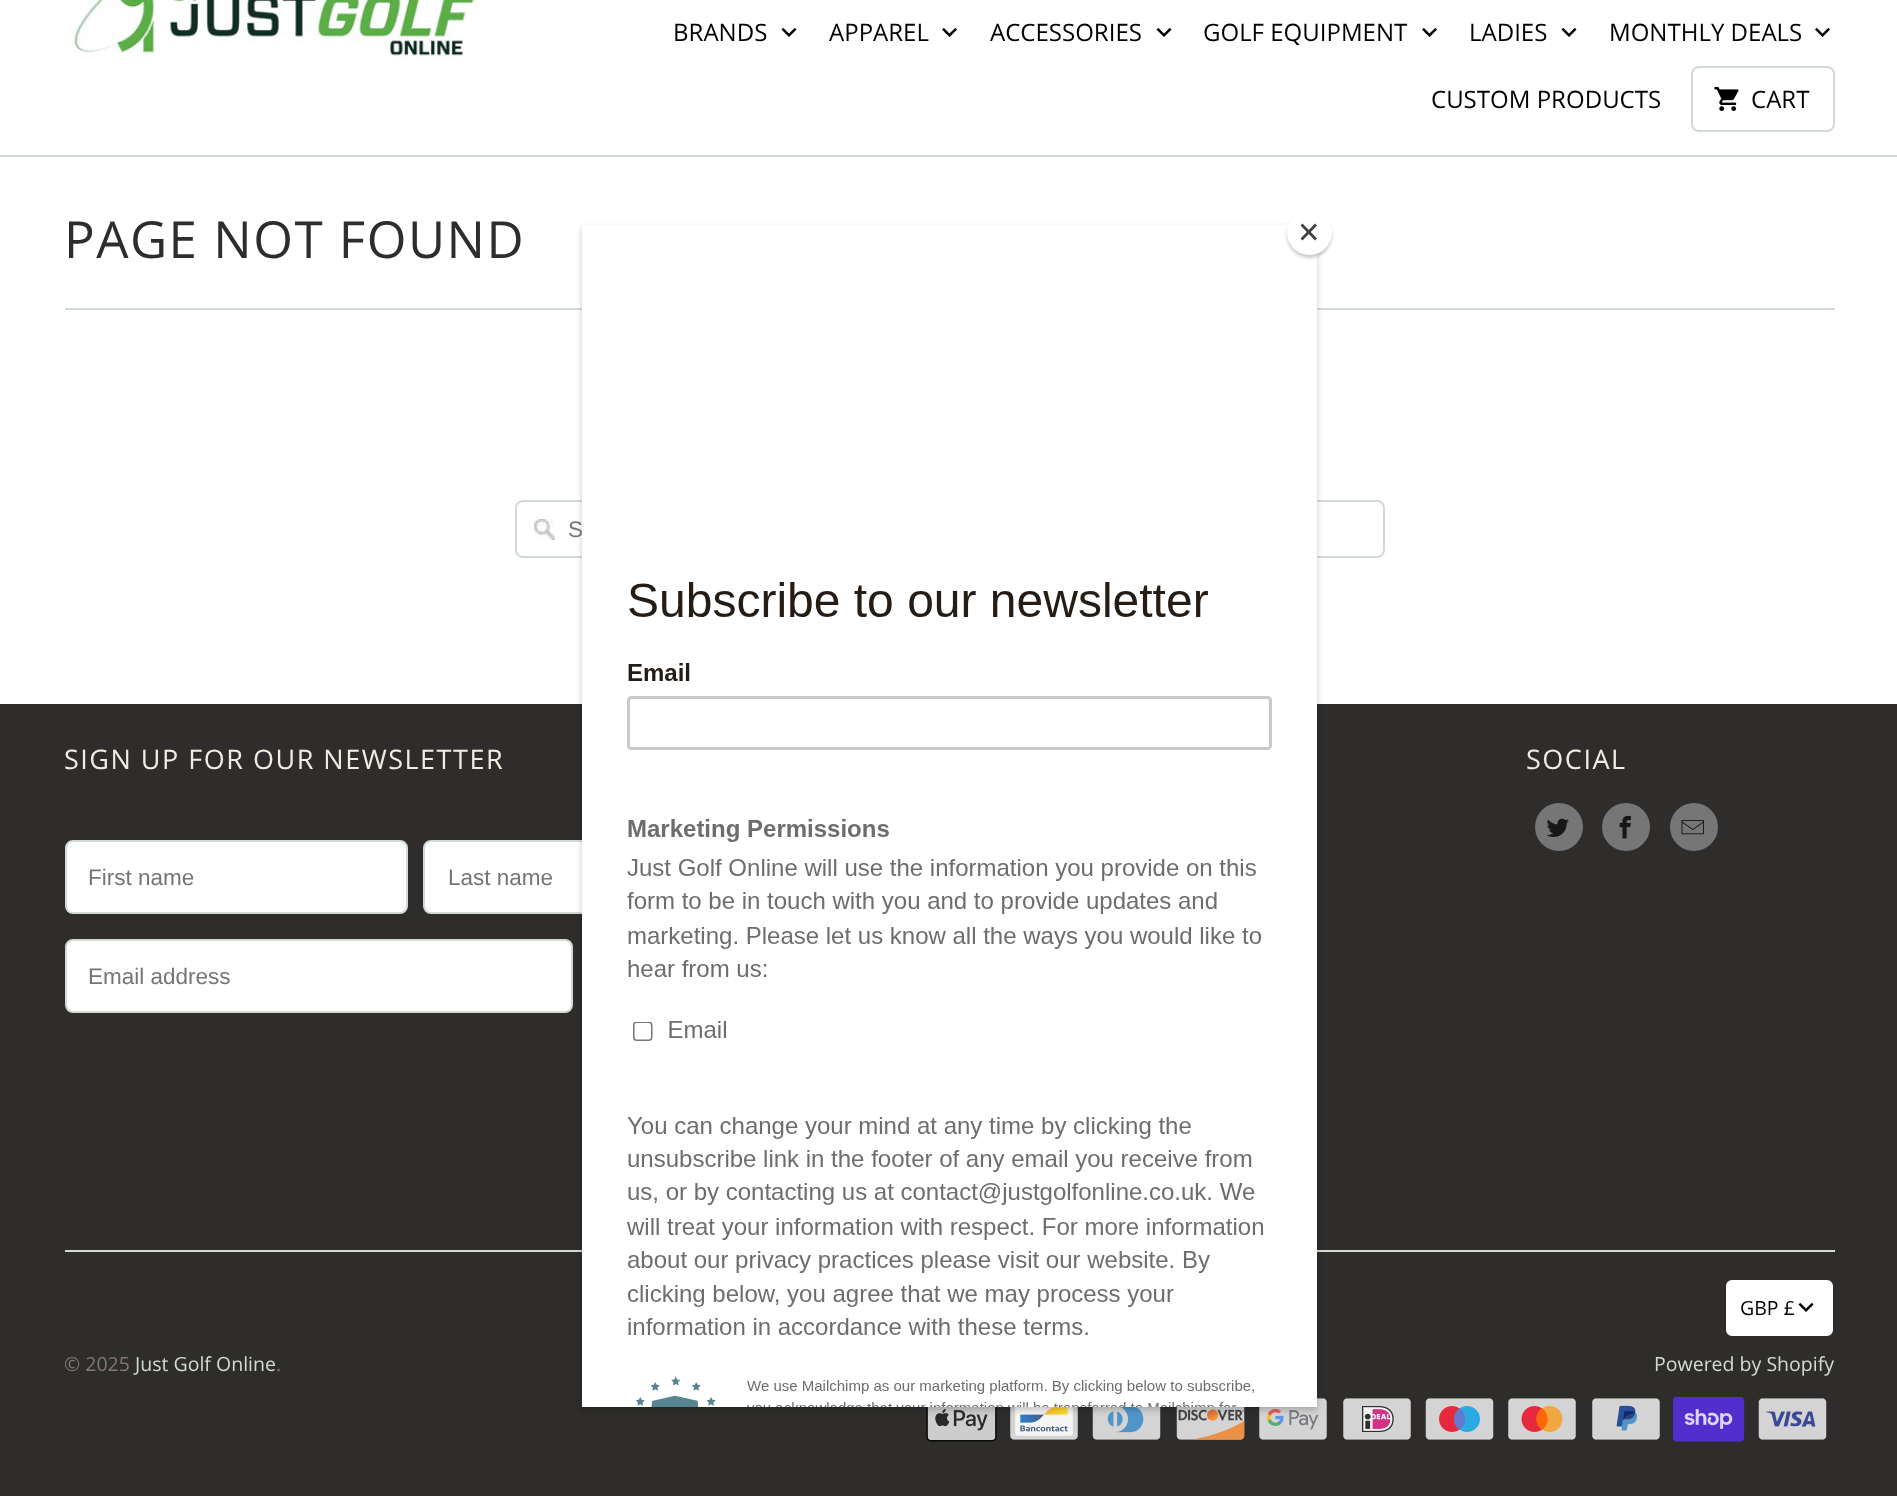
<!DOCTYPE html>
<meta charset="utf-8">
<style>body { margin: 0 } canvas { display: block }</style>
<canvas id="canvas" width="1897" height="1496"></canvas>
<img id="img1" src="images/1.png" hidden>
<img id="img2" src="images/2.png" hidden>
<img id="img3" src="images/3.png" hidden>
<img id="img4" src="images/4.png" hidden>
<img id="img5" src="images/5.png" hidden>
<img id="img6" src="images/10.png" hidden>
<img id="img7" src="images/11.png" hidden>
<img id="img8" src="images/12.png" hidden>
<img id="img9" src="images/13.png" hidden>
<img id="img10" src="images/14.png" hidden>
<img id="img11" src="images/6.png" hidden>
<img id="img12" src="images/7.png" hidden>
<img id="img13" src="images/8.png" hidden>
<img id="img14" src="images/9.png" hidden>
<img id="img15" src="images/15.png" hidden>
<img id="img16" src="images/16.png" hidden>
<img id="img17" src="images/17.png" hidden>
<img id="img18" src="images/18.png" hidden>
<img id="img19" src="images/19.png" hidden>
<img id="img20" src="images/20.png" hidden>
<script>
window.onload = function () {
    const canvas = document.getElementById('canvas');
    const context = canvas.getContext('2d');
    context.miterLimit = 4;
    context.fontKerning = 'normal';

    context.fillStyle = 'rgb(255, 255, 255)';
    context.fillRect(0, 0, 1897, 1496);
    context.fillStyle = 'rgb(209, 219, 212)';
    context.fillRect(0, 155, 1897, 2);
    context.drawImage(document.getElementById('img1'), 73, 0, 401, 59);
    context.drawImage(document.getElementById('img2'), 781, 27, 16, 10);
    context.drawImage(document.getElementById('img3'), 942, 27, 15, 10);
    context.drawImage(document.getElementById('img2'), 1156, 27, 16, 10);
    context.drawImage(document.getElementById('img3'), 1422, 27, 15, 10);
    context.drawImage(document.getElementById('img2'), 1561, 27, 16, 10);
    context.drawImage(document.getElementById('img3'), 1815, 27, 15, 10);
    context.beginPath();
    context.roundRect(1692, 67, 142, 64, 7);
    context.strokeStyle = 'rgb(209, 219, 212)';
    context.lineWidth = 2;
    context.stroke();
    context.drawImage(document.getElementById('img4'), 1714, 87, 25, 24);
    context.fillRect(65, 308, 1770, 2);
    context.drawImage(document.getElementById('img5'), 534, 519, 21, 21);
    context.beginPath();
    context.roundRect(516, 501, 868, 56, 7);
    context.stroke();
    context.fillStyle = 'rgba(0, 0, 0, 0.2)';
    context.filter = 'blur(1.5px)';
    context.beginPath();
    context.roundRect(1287, 213, 45, 45, 22.5);
    context.fill();
    context.filter = 'none';
    context.fillStyle = 'rgb(46, 45, 44)';
    context.fillRect(0, 704, 1897, 792);
    context.fillStyle = 'rgb(255, 255, 255)';
    context.beginPath();
    context.roundRect(424, 841, 343, 72, 7);
    context.fill();
    context.stroke();
    context.beginPath();
    context.roundRect(66, 940, 506, 72, 7);
    context.fill();
    context.stroke();
    context.fillStyle = 'rgb(209, 219, 212)';
    context.fillRect(65, 1250, 1770, 2);
    context.drawImage(document.getElementById('img6'), 926, 1407, 71, 35);
    context.drawImage(document.getElementById('img7'), 1010, 1407, 68, 33);
    context.drawImage(document.getElementById('img8'), 1092, 1407, 69, 33);
    context.drawImage(document.getElementById('img9'), 1176, 1407, 69, 33);
    context.drawImage(document.getElementById('img10'), 1259, 1398, 68, 42);
    context.save();
    context.beginPath();
    context.moveTo(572, 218);
    context.lineTo(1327, 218);
    context.lineTo(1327, 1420);
    context.lineTo(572, 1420);
    context.closePath();
    context.moveTo(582, 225);
    context.lineTo(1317, 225);
    context.lineTo(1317, 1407);
    context.lineTo(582, 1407);
    context.closePath();
    context.clip('evenodd');
    context.fillStyle = 'rgba(0, 0, 0, 0.2)';
    context.filter = 'blur(3px)';
    context.beginPath();
    context.rect(582, 228, 735, 1182);
    context.fill();
    context.filter = 'none';
    context.restore();
    context.fillStyle = 'rgb(255, 255, 255)';
    context.beginPath();
    context.arc(1309.5, 232.5, 22.5, 0, 2 * Math.PI);
    context.fill();
    context.fillStyle = 'rgb(65, 65, 65)';
    context.beginPath();
    context.moveTo(1315, 223.5);
    context.lineTo(1317, 225.5);
    context.lineTo(1302.5, 240.5);
    context.lineTo(1300.5, 238.5);
    context.closePath();
    context.fill();
    context.beginPath();
    context.moveTo(1300.5, 225.5);
    context.lineTo(1302.5, 223.5);
    context.lineTo(1317, 238.5);
    context.lineTo(1315, 240.5);
    context.closePath();
    context.fill();
    context.drawImage(document.getElementById('img11'), 582, 308, 735, 1099);
    context.fillStyle = 'rgb(255, 255, 255)';
    context.beginPath();
    context.roundRect(66, 841, 341, 72, 7);
    context.fill();
    context.stroke();
    context.fillStyle = 'rgb(118, 118, 118)';
    context.beginPath();
    context.arc(1559, 827, 24, 0, 2 * Math.PI);
    context.fill();
    context.drawImage(document.getElementById('img12'), 1547, 818, 22, 19);
    context.beginPath();
    context.arc(1626, 827, 24, 0, 2 * Math.PI);
    context.fill();
    context.drawImage(document.getElementById('img13'), 1619, 815, 12, 24);
    context.beginPath();
    context.arc(1694, 827, 24, 0, 2 * Math.PI);
    context.fill();
    context.drawImage(document.getElementById('img14'), 1681, 820, 23, 15);
    context.fillStyle = 'rgb(255, 255, 255)';
    context.beginPath();
    context.roundRect(1725, 1279, 109, 58, 7);
    context.fill();
    context.strokeStyle = 'rgb(46, 45, 44)';
    context.stroke();
    context.drawImage(document.getElementById('img2'), 1798, 1302, 16, 10);
    context.drawImage(document.getElementById('img15'), 1343, 1398, 68, 42);
    context.drawImage(document.getElementById('img16'), 1425, 1398, 69, 42);
    context.drawImage(document.getElementById('img17'), 1508, 1398, 68, 42);
    context.drawImage(document.getElementById('img18'), 1592, 1398, 68, 42);
    context.drawImage(document.getElementById('img19'), 1673, 1397, 72, 45);
    context.drawImage(document.getElementById('img20'), 1758, 1398, 69, 42);
    context.font = '24px Open Sans';
    context.fillStyle = 'rgb(0, 0, 0)';
    context.fillText('BRANDS', 673, 41);
    context.fillText('APPAREL', 829, 41);
    context.fillText('ACCESSORIES', 990, 41);
    context.fillText('GOLF EQUIPMENT', 1203, 41);
    context.fillText('LADIES', 1469, 41);
    context.fillText('MONTHLY DEALS', 1609, 41);
    context.fillText('CUSTOM PRODUCTS', 1431, 108);
    context.fillText('CART', 1751, 108);
    context.letterSpacing = '1.5px';
    context.font = '51px Open Sans';
    context.fillStyle = 'rgb(46, 45, 44)';
    context.fillText('PAGE NOT FOUND', 64, 258);
    context.letterSpacing = '0px';
    context.font = '22.5px Liberation Sans';
    context.fillStyle = 'rgb(117, 117, 117)';
    context.fillText('S', 568, 537);
    context.letterSpacing = '1.5px';
    context.font = '27px Open Sans';
    context.fillStyle = 'rgb(242, 237, 227)';
    context.fillText('SIGN UP FOR OUR NEWSLETTER', 64, 769);
    context.letterSpacing = '0px';
    context.font = '22.5px Liberation Sans';
    context.fillStyle = 'rgb(117, 117, 117)';
    context.fillText('First name', 88, 885);
    context.fillText('Last name', 448, 885);
    context.fillText('Email address', 88, 984);
    context.letterSpacing = '1.5px';
    context.font = '27px Open Sans';
    context.fillStyle = 'rgb(242, 237, 227)';
    context.fillText('SOCIAL', 1526, 769);
    context.letterSpacing = '0px';
    context.font = '19.5px Open Sans';
    context.fillStyle = 'rgb(0, 0, 0)';
    context.fillText('GBP £', 1740, 1315);
    context.fillStyle = 'rgb(133, 119, 119)';
    context.fillText('© 2025', 64, 1371);
    context.fillStyle = 'rgb(209, 219, 212)';
    context.fillText('Just Golf Online', 135, 1371);
    context.fillStyle = 'rgb(133, 119, 119)';
    context.fillText('.', 276, 1371);
    context.fillStyle = 'rgb(209, 219, 212)';
    context.fillText('Powered by Shopify', 1654, 1371);
};
</script>
